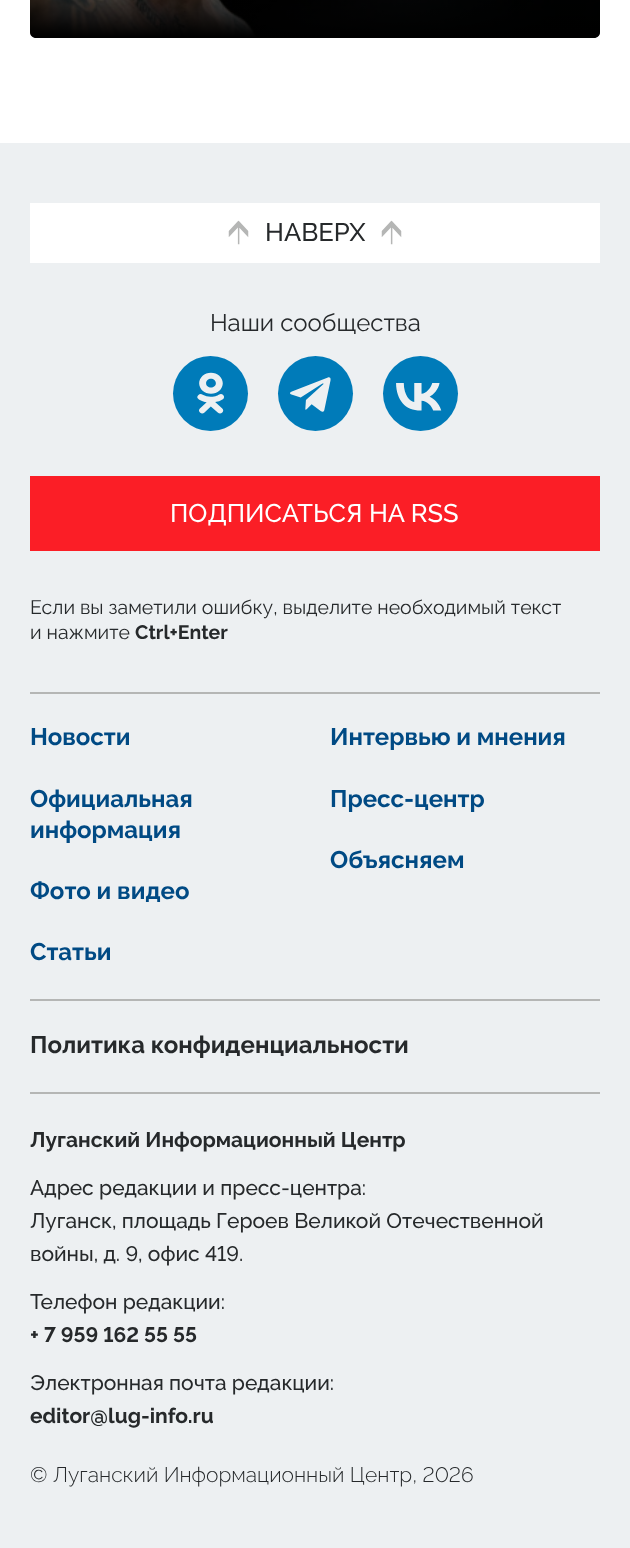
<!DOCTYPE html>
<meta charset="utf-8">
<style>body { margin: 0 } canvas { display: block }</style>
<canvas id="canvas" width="630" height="1548"></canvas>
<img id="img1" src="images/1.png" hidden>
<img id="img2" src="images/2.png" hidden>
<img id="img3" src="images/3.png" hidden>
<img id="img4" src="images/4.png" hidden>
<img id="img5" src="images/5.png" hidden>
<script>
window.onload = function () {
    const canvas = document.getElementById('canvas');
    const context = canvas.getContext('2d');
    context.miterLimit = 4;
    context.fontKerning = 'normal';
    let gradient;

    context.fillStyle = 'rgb(255, 255, 255)';
    context.fillRect(0, 0, 630, 1548);
    context.drawImage(document.getElementById('img1'), 30, 0, 570, 38);
    gradient = context.createLinearGradient(315, 38, 315, -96);
    gradient.addColorStop(0, 'rgb(0, 0, 0)');
    gradient.addColorStop(1, 'rgba(0, 0, 0, 0)');
    context.fillStyle = gradient;
    context.beginPath();
    context.moveTo(30, -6);
    context.lineTo(600, -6);
    context.lineTo(600, 32);
    context.bezierCurveTo(600, 35.5, 597.5, 38, 594, 38);
    context.lineTo(36, 38);
    context.bezierCurveTo(32.5, 38, 30, 35.5, 30, 32);
    context.closePath();
    context.fill();
    context.fillStyle = 'rgb(237, 240, 242)';
    context.fillRect(0, 143, 630, 1405);
    context.fillStyle = 'rgb(255, 255, 255)';
    context.fillRect(30, 203, 570, 60);
    context.drawImage(document.getElementById('img2'), 228, 220, 21, 25);
    context.drawImage(document.getElementById('img2'), 381, 220, 21, 25);
    context.fillStyle = 'rgb(0, 123, 185)';
    context.beginPath();
    context.arc(210.5, 393.5, 37.5, 0, 2 * Math.PI);
    context.fill();
    context.drawImage(document.getElementById('img3'), 197, 372, 27, 42);
    context.beginPath();
    context.arc(315.5, 393.5, 37.5, 0, 2 * Math.PI);
    context.fill();
    context.drawImage(document.getElementById('img4'), 290, 377, 41, 35);
    context.beginPath();
    context.arc(420.5, 393.5, 37.5, 0, 2 * Math.PI);
    context.fill();
    context.drawImage(document.getElementById('img5'), 396, 383, 46, 28);
    context.fillStyle = 'rgb(251, 30, 38)';
    context.fillRect(30, 476, 570, 75);
    context.fillStyle = 'rgb(181, 182, 181)';
    context.fillRect(30, 692, 570, 2);
    context.fillRect(30, 999, 570, 2);
    context.fillRect(30, 1092, 570, 2);
    context.font = '500 25.5px Raleway';
    context.fillStyle = 'rgb(38, 41, 43)';
    context.fillText('НАВЕРХ', 265, 241);
    context.font = '24px Raleway';
    context.fillText('Наши сообщества', 210, 331);
    context.font = '500 25.5px Raleway';
    context.fillStyle = 'rgb(255, 255, 255)';
    context.fillText('ПОДПИСАТЬСЯ НА RSS', 170, 522);
    context.font = '19.5px Raleway';
    context.fillStyle = 'rgb(38, 41, 43)';
    context.fillText('Если вы заметили ошибку, выделите необходимый текст', 30, 614);
    context.fillText('и нажмите', 30, 639);
    context.font = 'bold 19.5px Raleway';
    context.fillText('Ctrl+Enter', 135, 639);
    context.font = 'bold 24px Raleway';
    context.fillStyle = 'rgb(0, 74, 132)';
    context.fillText('Новости', 30, 745);
    context.fillText('Интервью и мнения', 330, 745);
    context.fillText('Официальная', 30, 807);
    context.fillText('информация', 30, 838);
    context.fillText('Пресс-центр', 330, 807);
    context.fillText('Объясняем', 330, 868);
    context.fillText('Фото и видео', 30, 899);
    context.fillText('Статьи', 30, 960);
    context.fillStyle = 'rgb(38, 41, 43)';
    context.fillText('Политика конфиденциальности', 30, 1053);
    context.font = 'bold 21px Raleway';
    context.fillText('Луганский Информационный Центр', 30, 1147);
    context.font = '500 21px Raleway';
    context.fillText('Адрес редакции и пресс-центра:', 30, 1195);
    context.fillText('Луганск, площадь Героев Великой Отечественной', 30, 1228);
    context.font = '500 21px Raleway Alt';
    context.fillText('войны, д. 9, офис 419.', 30, 1261);
    context.font = '500 21px Raleway';
    context.fillText('Телефон редакции:', 30, 1309);
    context.font = 'bold 21px Raleway Alt';
    context.fillText('+ 7 959 162 55 55', 30, 1342);
    context.font = '500 21px Raleway';
    context.fillText('Электронная почта редакции:', 30, 1390);
    context.font = 'bold 21px Raleway';
    context.fillText('editor@lug-info.ru', 30, 1423);
    context.font = '300 21px Raleway Alt';
    context.fillText('© Луганский Информационный Центр, 2026', 30, 1482);
};
</script>
